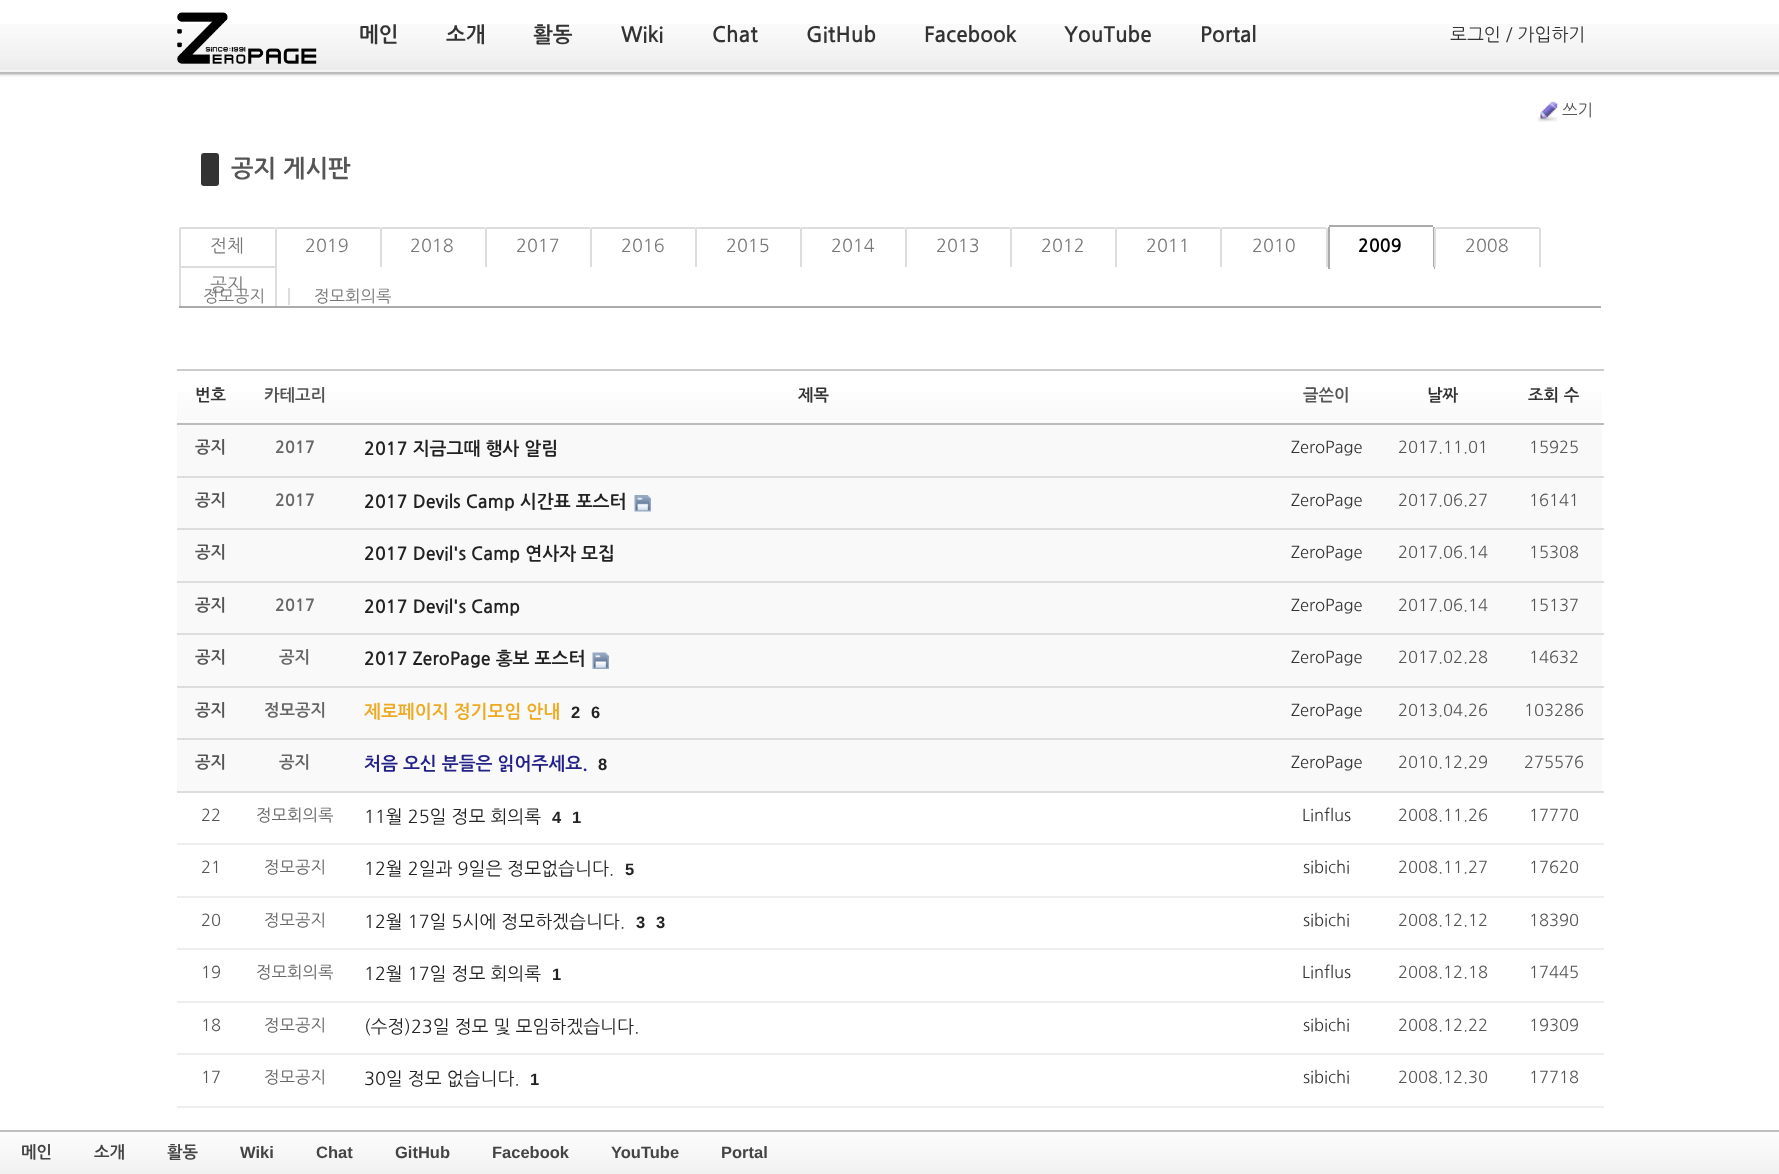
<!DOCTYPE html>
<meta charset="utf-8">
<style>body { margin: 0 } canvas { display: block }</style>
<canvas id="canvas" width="1779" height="1174"></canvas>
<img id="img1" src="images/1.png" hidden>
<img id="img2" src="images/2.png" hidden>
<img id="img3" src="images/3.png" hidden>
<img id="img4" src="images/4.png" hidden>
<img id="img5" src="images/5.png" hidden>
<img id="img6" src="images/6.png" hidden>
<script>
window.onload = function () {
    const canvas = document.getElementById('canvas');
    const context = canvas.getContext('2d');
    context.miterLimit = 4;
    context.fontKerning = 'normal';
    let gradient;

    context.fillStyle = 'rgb(255, 255, 255)';
    context.fillRect(0, 0, 1779, 1174);
    context.drawImage(document.getElementById('img1'), 0, 24, 1779, 53);
    context.drawImage(document.getElementById('img2'), 177, 12, 140, 52);
    context.drawImage(document.getElementById('img3'), 1537, 101, 21, 21);
    context.fillStyle = 'rgb(51, 51, 51)';
    context.beginPath();
    context.roundRect(201, 153, 18, 33, 3);
    context.fill();
    context.fillStyle = 'rgb(170, 170, 170)';
    context.fillRect(179, 306, 1422, 2);
    context.fillStyle = 'rgb(221, 221, 221)';
    context.fillRect(179, 228, 2, 78);
    context.fillRect(180, 227, 95, 2);
    context.fillStyle = 'rgb(170, 170, 170)';
    context.fillRect(1433, 227, 2, 42);
    context.fillStyle = 'rgb(255, 255, 255)';
    context.fillRect(1433, 267, 1, 2);
    context.fillStyle = 'rgb(170, 170, 170)';
    context.fillRect(1328, 227, 2, 42);
    context.fillRect(1329, 225, 104, 2);
    context.fillStyle = 'rgb(221, 221, 221)';
    context.fillRect(288, 288, 2, 17);
    context.fillRect(275, 228, 2, 78);
    context.fillRect(276, 227, 104, 2);
    context.fillRect(380, 228, 2, 39);
    context.fillRect(381, 227, 104, 2);
    context.fillRect(485, 228, 2, 39);
    context.fillRect(486, 227, 104, 2);
    context.fillRect(590, 228, 2, 39);
    context.fillRect(591, 227, 104, 2);
    context.fillRect(695, 228, 2, 39);
    context.fillRect(696, 227, 104, 2);
    context.fillRect(800, 228, 2, 39);
    context.fillRect(801, 227, 104, 2);
    context.fillRect(905, 228, 2, 39);
    context.fillRect(906, 227, 104, 2);
    context.fillRect(1010, 228, 2, 39);
    context.fillRect(1011, 227, 104, 2);
    context.fillRect(1115, 228, 2, 39);
    context.fillRect(1116, 227, 104, 2);
    context.fillRect(1326, 228, 2, 39);
    context.fillRect(1220, 228, 2, 39);
    context.fillRect(1221, 227, 105, 2);
    context.fillRect(1539, 228, 2, 39);
    context.fillRect(1434, 228, 2, 39);
    context.fillRect(1436, 227, 103, 2);
    context.fillRect(180, 266, 95, 2);
    gradient = context.createLinearGradient(890, 370, 890, 423);
    gradient.addColorStop(0, 'rgb(255, 255, 255)');
    gradient.addColorStop(1, 'rgb(249, 249, 249)');
    context.fillStyle = gradient;
    context.fillRect(177, 392, 1425, 31);
    context.fillStyle = 'rgb(255, 255, 255)';
    context.fillRect(177, 420, 1425, 2);
    context.fillStyle = 'rgb(204, 204, 204)';
    context.fillRect(177, 369, 1427, 2);
    context.fillStyle = 'rgb(187, 187, 187)';
    context.fillRect(177, 423, 1427, 2);
    context.fillStyle = 'rgb(249, 249, 249)';
    context.fillRect(177, 425, 1425, 51);
    context.fillStyle = 'rgb(221, 221, 221)';
    context.fillRect(177, 476, 1427, 2);
    context.fillStyle = 'rgb(249, 249, 249)';
    context.fillRect(177, 478, 1425, 50);
    context.drawImage(document.getElementById('img4'), 634, 495, 17, 17);
    context.fillStyle = 'rgb(221, 221, 221)';
    context.fillRect(177, 528, 1427, 2);
    context.fillStyle = 'rgb(249, 249, 249)';
    context.fillRect(177, 530, 1425, 51);
    context.fillStyle = 'rgb(221, 221, 221)';
    context.fillRect(177, 581, 1427, 2);
    context.fillStyle = 'rgb(249, 249, 249)';
    context.fillRect(177, 583, 1425, 50);
    context.fillStyle = 'rgb(221, 221, 221)';
    context.fillRect(177, 633, 1427, 2);
    context.fillStyle = 'rgb(249, 249, 249)';
    context.fillRect(177, 635, 1425, 51);
    context.drawImage(document.getElementById('img5'), 592, 652, 17, 17);
    context.fillStyle = 'rgb(221, 221, 221)';
    context.fillRect(177, 686, 1427, 2);
    context.fillStyle = 'rgb(249, 249, 249)';
    context.fillRect(177, 688, 1425, 50);
    context.fillStyle = 'rgb(221, 221, 221)';
    context.fillRect(177, 738, 1427, 2);
    context.fillStyle = 'rgb(249, 249, 249)';
    context.fillRect(177, 740, 1425, 51);
    context.fillStyle = 'rgb(221, 221, 221)';
    context.fillRect(177, 791, 1427, 2);
    context.fillStyle = 'rgb(238, 238, 238)';
    context.fillRect(177, 843, 1427, 2);
    context.fillRect(177, 896, 1427, 2);
    context.fillRect(177, 948, 1427, 2);
    context.fillRect(177, 1001, 1427, 2);
    context.fillRect(177, 1053, 1427, 2);
    context.fillRect(177, 1106, 1427, 2);
    context.drawImage(document.getElementById('img6'), 0, 1132, 1779, 42);
    context.fillStyle = 'rgb(191, 191, 191)';
    context.fillRect(0, 1130, 1779, 2);
    context.font = 'bold 21px NanumGothic';
    context.fillStyle = 'rgb(51, 51, 51)';
    context.fillText('메인', 359, 42);
    context.fillText('소개', 446, 42);
    context.fillText('활동', 533, 42);
    context.fillText('Wiki', 621, 42);
    context.fillText('Chat', 712, 42);
    context.fillText('GitHub', 806, 42);
    context.fillText('Facebook', 924, 42);
    context.fillText('YouTube', 1064, 42);
    context.fillText('Portal', 1200, 42);
    context.font = '18px NanumGothic';
    context.fillText('로그인 / 가입하기', 1450, 41);
    context.font = '16.5px NanumGothic';
    context.fillStyle = 'rgb(85, 85, 85)';
    context.fillText('쓰기', 1562, 116);
    context.font = 'bold 24px NanumGothic';
    context.fillText('공지 게시판', 231, 177);
    context.font = '18px NanumGothic';
    context.fillStyle = 'rgb(119, 119, 119)';
    context.fillText('전체', 210, 252);
    context.font = 'bold 18px NanumGothic';
    context.fillStyle = 'rgb(0, 0, 0)';
    context.fillText('2009', 1358, 252);
    context.font = '16.5px NanumGothic';
    context.fillStyle = 'rgb(119, 119, 119)';
    context.fillText('정모공지', 203, 302);
    context.fillText('정모회의록', 314, 302);
    context.font = '18px NanumGothic';
    context.fillText('2019', 305, 252);
    context.fillText('2018', 410, 252);
    context.fillText('2017', 516, 252);
    context.fillText('2016', 621, 252);
    context.fillText('2015', 726, 252);
    context.fillText('2014', 831, 252);
    context.fillText('2013', 936, 252);
    context.fillText('2012', 1041, 252);
    context.fillText('2011', 1146, 252);
    context.fillText('2010', 1252, 252);
    context.fillText('2008', 1465, 252);
    context.fillText('공지', 210, 291);
    context.font = 'bold 16.5px NanumGothic';
    context.fillStyle = 'rgb(51, 51, 51)';
    context.fillText('번호', 195, 401);
    context.fillStyle = 'rgb(85, 85, 85)';
    context.fillText('카테고리', 264, 401);
    context.fillStyle = 'rgb(51, 51, 51)';
    context.fillText('제목', 798, 401);
    context.fillStyle = 'rgb(85, 85, 85)';
    context.fillText('글쓴이', 1303, 401);
    context.fillStyle = 'rgb(51, 51, 51)';
    context.fillText('날짜', 1427, 401);
    context.fillText('조회 수', 1528, 401);
    context.fillStyle = 'rgb(85, 85, 85)';
    context.fillText('공지', 195, 453);
    context.fillStyle = 'rgb(102, 102, 102)';
    context.fillText('2017', 275, 453);
    context.font = 'bold 18px NanumGothic';
    context.fillStyle = 'rgb(34, 34, 34)';
    context.fillText('2017 지금그때 행사 알림', 364, 455);
    context.font = '16.5px NanumGothic';
    context.fillStyle = 'rgb(51, 51, 51)';
    context.fillText('ZeroPage', 1291, 453);
    context.fillStyle = 'rgb(85, 85, 85)';
    context.fillText('2017.11.01', 1398, 453);
    context.fillText('15925', 1529, 453);
    context.font = 'bold 16.5px NanumGothic';
    context.fillText('공지', 195, 506);
    context.fillStyle = 'rgb(102, 102, 102)';
    context.fillText('2017', 275, 506);
    context.font = 'bold 18px NanumGothic';
    context.fillStyle = 'rgb(34, 34, 34)';
    context.fillText('2017 Devils Camp 시간표 포스터', 364, 508);
    context.font = '16.5px NanumGothic';
    context.fillStyle = 'rgb(51, 51, 51)';
    context.fillText('ZeroPage', 1291, 506);
    context.fillStyle = 'rgb(85, 85, 85)';
    context.fillText('2017.06.27', 1398, 506);
    context.fillText('16141', 1529, 506);
    context.font = 'bold 16.5px NanumGothic';
    context.fillText('공지', 195, 558);
    context.font = 'bold 18px NanumGothic';
    context.fillStyle = 'rgb(34, 34, 34)';
    context.fillText('2017 Devil\'s Camp 연사자 모집', 364, 560);
    context.font = '16.5px NanumGothic';
    context.fillStyle = 'rgb(51, 51, 51)';
    context.fillText('ZeroPage', 1291, 558);
    context.fillStyle = 'rgb(85, 85, 85)';
    context.fillText('2017.06.14', 1398, 558);
    context.fillText('15308', 1529, 558);
    context.font = 'bold 16.5px NanumGothic';
    context.fillText('공지', 195, 611);
    context.fillStyle = 'rgb(102, 102, 102)';
    context.fillText('2017', 275, 611);
    context.font = 'bold 18px NanumGothic';
    context.fillStyle = 'rgb(34, 34, 34)';
    context.fillText('2017 Devil\'s Camp', 364, 613);
    context.font = '16.5px NanumGothic';
    context.fillStyle = 'rgb(51, 51, 51)';
    context.fillText('ZeroPage', 1291, 611);
    context.fillStyle = 'rgb(85, 85, 85)';
    context.fillText('2017.06.14', 1398, 611);
    context.fillText('15137', 1529, 611);
    context.font = 'bold 16.5px NanumGothic';
    context.fillText('공지', 195, 663);
    context.fillStyle = 'rgb(102, 102, 102)';
    context.fillText('공지', 279, 663);
    context.font = 'bold 18px NanumGothic';
    context.fillStyle = 'rgb(34, 34, 34)';
    context.fillText('2017 ZeroPage 홍보 포스터', 364, 665);
    context.font = '16.5px NanumGothic';
    context.fillStyle = 'rgb(51, 51, 51)';
    context.fillText('ZeroPage', 1291, 663);
    context.fillStyle = 'rgb(85, 85, 85)';
    context.fillText('2017.02.28', 1398, 663);
    context.fillText('14632', 1529, 663);
    context.font = 'bold 16.5px NanumGothic';
    context.fillText('공지', 195, 716);
    context.fillStyle = 'rgb(102, 102, 102)';
    context.fillText('정모공지', 264, 716);
    context.font = 'bold 18px NanumGothic';
    context.fillStyle = 'rgb(238, 170, 34)';
    context.fillText('제로페이지 정기모임 안내', 364, 718);
    context.font = 'bold 16.5px Liberation Sans';
    context.fillStyle = 'rgb(34, 34, 34)';
    context.fillText('2', 571, 718);
    context.fillText('6', 591, 718);
    context.font = '16.5px NanumGothic';
    context.fillStyle = 'rgb(51, 51, 51)';
    context.fillText('ZeroPage', 1291, 716);
    context.fillStyle = 'rgb(85, 85, 85)';
    context.fillText('2013.04.26', 1398, 716);
    context.fillText('103286', 1524, 716);
    context.font = 'bold 16.5px NanumGothic';
    context.fillText('공지', 195, 768);
    context.fillStyle = 'rgb(102, 102, 102)';
    context.fillText('공지', 279, 768);
    context.font = 'bold 18px NanumGothic';
    context.fillStyle = 'rgb(34, 34, 136)';
    context.fillText('처음 오신 분들은 읽어주세요.', 364, 770);
    context.font = 'bold 16.5px Liberation Sans';
    context.fillStyle = 'rgb(34, 34, 34)';
    context.fillText('8', 598, 770);
    context.font = '16.5px NanumGothic';
    context.fillStyle = 'rgb(51, 51, 51)';
    context.fillText('ZeroPage', 1291, 768);
    context.fillStyle = 'rgb(85, 85, 85)';
    context.fillText('2010.12.29', 1398, 768);
    context.fillText('275576', 1524, 768);
    context.fillText('22', 201, 821);
    context.fillStyle = 'rgb(102, 102, 102)';
    context.fillText('정모회의록', 256, 821);
    context.font = '18px NanumGothic';
    context.fillStyle = 'rgb(34, 34, 34)';
    context.fillText('11월 25일 정모 회의록', 364, 823);
    context.font = 'bold 16.5px Liberation Sans';
    context.fillText('4', 552, 823);
    context.fillText('1', 572, 823);
    context.font = '16.5px NanumGothic';
    context.fillStyle = 'rgb(51, 51, 51)';
    context.fillText('Linflus', 1302, 821);
    context.fillStyle = 'rgb(85, 85, 85)';
    context.fillText('2008.11.26', 1398, 821);
    context.fillText('17770', 1529, 821);
    context.fillText('21', 201, 873);
    context.fillStyle = 'rgb(102, 102, 102)';
    context.fillText('정모공지', 264, 873);
    context.font = '18px NanumGothic';
    context.fillStyle = 'rgb(34, 34, 34)';
    context.fillText('12월 2일과 9일은 정모없습니다.', 364, 875);
    context.font = 'bold 16.5px Liberation Sans';
    context.fillText('5', 625, 875);
    context.font = '16.5px NanumGothic';
    context.fillStyle = 'rgb(51, 51, 51)';
    context.fillText('sibichi', 1303, 873);
    context.fillStyle = 'rgb(85, 85, 85)';
    context.fillText('2008.11.27', 1398, 873);
    context.fillText('17620', 1529, 873);
    context.fillText('20', 201, 926);
    context.fillStyle = 'rgb(102, 102, 102)';
    context.fillText('정모공지', 264, 926);
    context.font = '18px NanumGothic';
    context.fillStyle = 'rgb(34, 34, 34)';
    context.fillText('12월 17일 5시에 정모하겠습니다.', 364, 928);
    context.font = 'bold 16.5px Liberation Sans';
    context.fillText('3', 636, 928);
    context.fillText('3', 656, 928);
    context.font = '16.5px NanumGothic';
    context.fillStyle = 'rgb(51, 51, 51)';
    context.fillText('sibichi', 1303, 926);
    context.fillStyle = 'rgb(85, 85, 85)';
    context.fillText('2008.12.12', 1398, 926);
    context.fillText('18390', 1529, 926);
    context.fillText('19', 201, 978);
    context.fillStyle = 'rgb(102, 102, 102)';
    context.fillText('정모회의록', 256, 978);
    context.font = '18px NanumGothic';
    context.fillStyle = 'rgb(34, 34, 34)';
    context.fillText('12월 17일 정모 회의록', 364, 980);
    context.font = 'bold 16.5px Liberation Sans';
    context.fillText('1', 552, 980);
    context.font = '16.5px NanumGothic';
    context.fillStyle = 'rgb(51, 51, 51)';
    context.fillText('Linflus', 1302, 978);
    context.fillStyle = 'rgb(85, 85, 85)';
    context.fillText('2008.12.18', 1398, 978);
    context.fillText('17445', 1529, 978);
    context.fillText('18', 201, 1031);
    context.fillStyle = 'rgb(102, 102, 102)';
    context.fillText('정모공지', 264, 1031);
    context.font = '18px NanumGothic';
    context.fillStyle = 'rgb(34, 34, 34)';
    context.fillText('(수정)23일 정모 및 모임하겠습니다.', 364, 1033);
    context.font = '16.5px NanumGothic';
    context.fillStyle = 'rgb(51, 51, 51)';
    context.fillText('sibichi', 1303, 1031);
    context.fillStyle = 'rgb(85, 85, 85)';
    context.fillText('2008.12.22', 1398, 1031);
    context.fillText('19309', 1529, 1031);
    context.fillText('17', 201, 1083);
    context.fillStyle = 'rgb(102, 102, 102)';
    context.fillText('정모공지', 264, 1083);
    context.font = '18px NanumGothic';
    context.fillStyle = 'rgb(34, 34, 34)';
    context.fillText('30일 정모 없습니다.', 364, 1085);
    context.font = 'bold 16.5px Liberation Sans';
    context.fillText('1', 530, 1085);
    context.font = '16.5px NanumGothic';
    context.fillStyle = 'rgb(51, 51, 51)';
    context.fillText('sibichi', 1303, 1083);
    context.fillStyle = 'rgb(85, 85, 85)';
    context.fillText('2008.12.30', 1398, 1083);
    context.fillText('17718', 1529, 1083);
    context.font = 'bold 16.5px NanumGothic';
    context.fillStyle = 'rgb(68, 68, 68)';
    context.fillText('메인', 21, 1158);
    context.fillText('소개', 94, 1158);
    context.fillText('활동', 167, 1158);
    context.font = 'bold 16.5px Liberation Sans';
    context.fillText('Wiki', 240, 1158);
    context.fillText('Chat', 316, 1158);
    context.fillText('GitHub', 395, 1158);
    context.fillText('Facebook', 492, 1158);
    context.fillText('YouTube', 611, 1158);
    context.fillText('Portal', 721, 1158);
};
</script>
